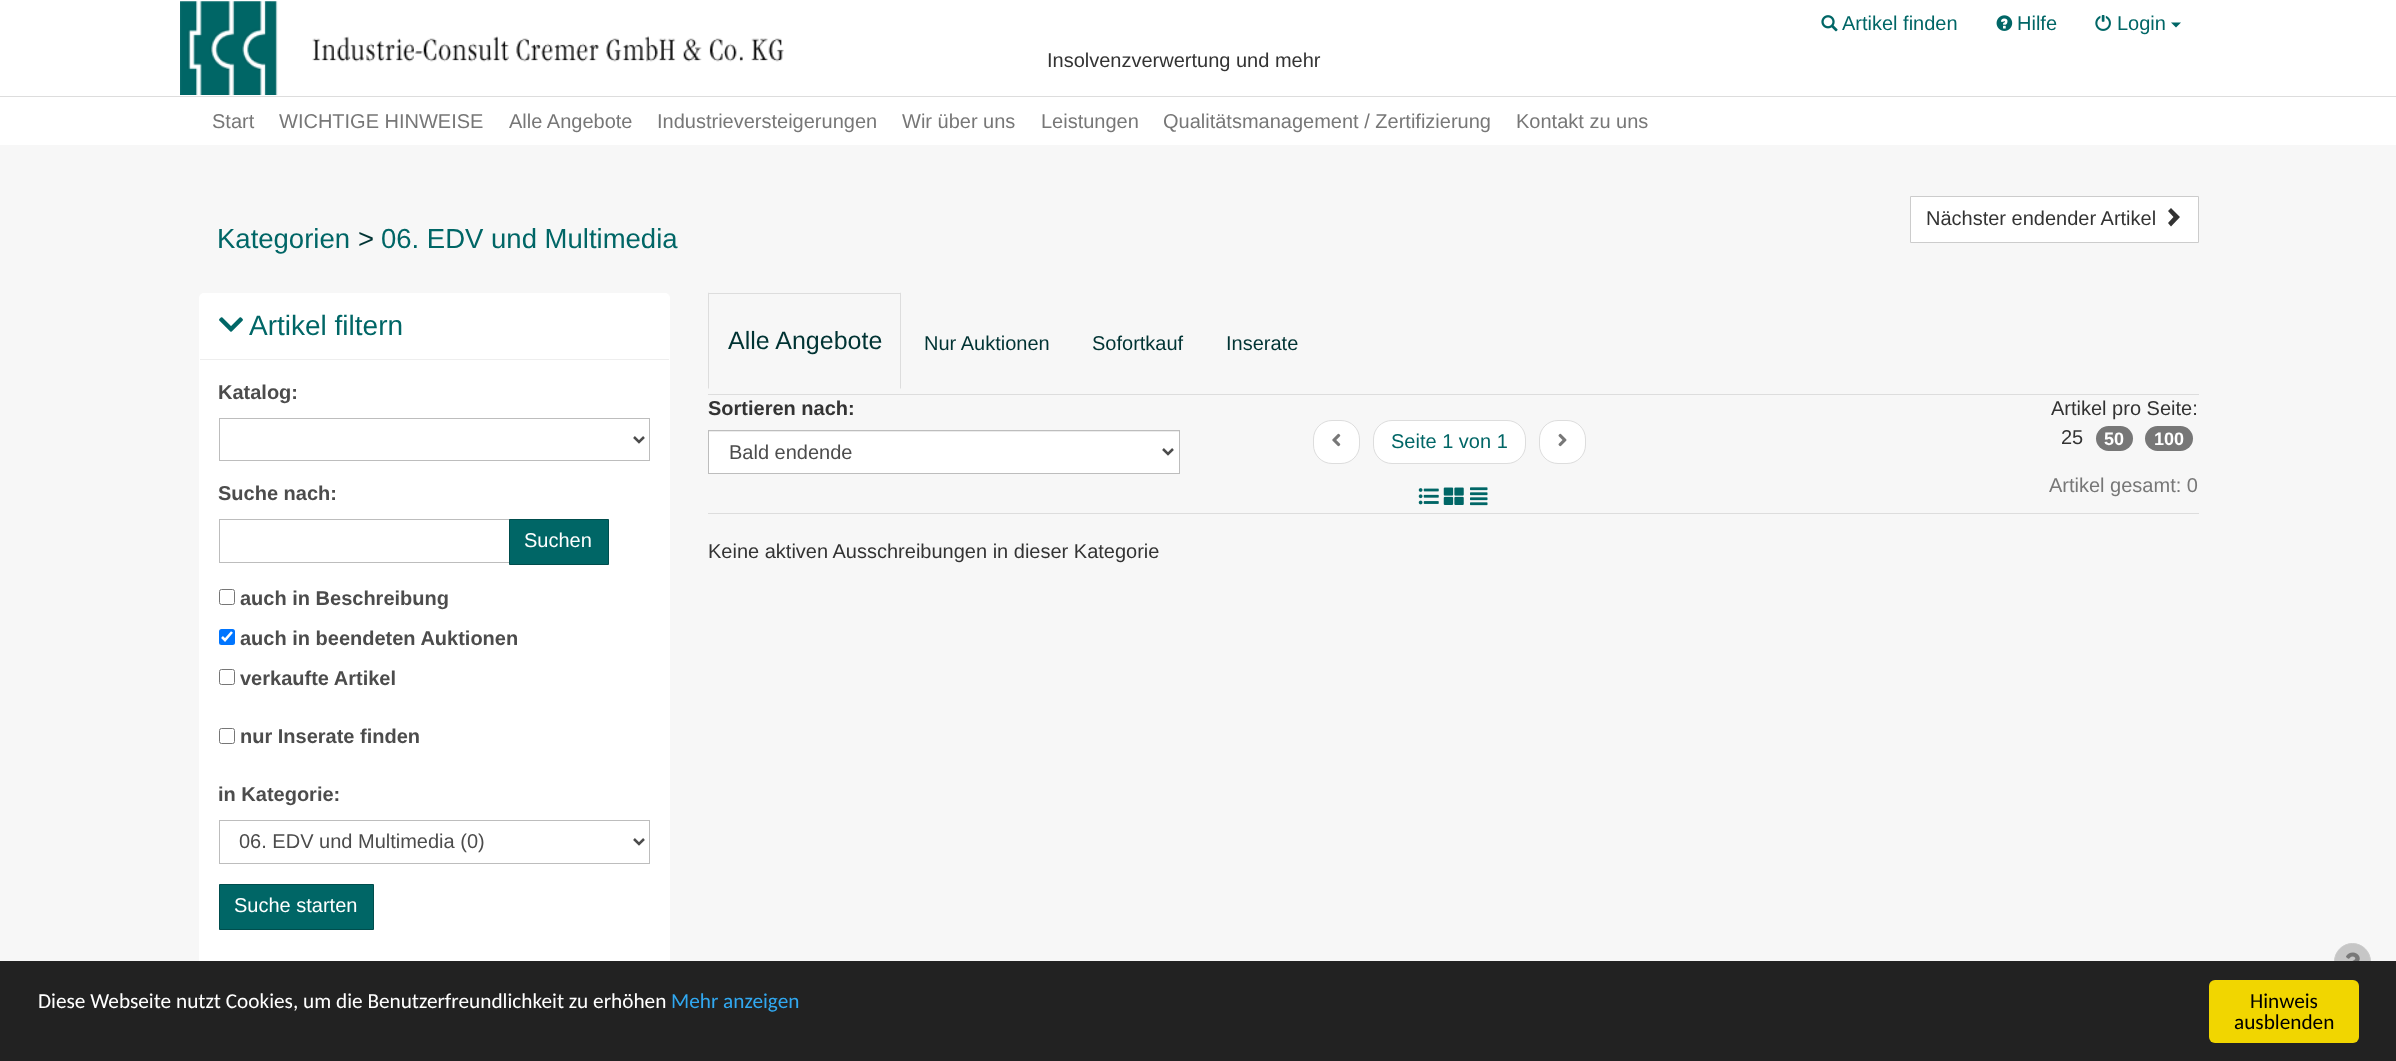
<!DOCTYPE html>
<meta charset="utf-8">
<style>body { margin: 0 } canvas { display: block }</style>
<canvas id="canvas" width="2396" height="1061"></canvas>
<img id="img1" src="images/1.png" hidden>
<img id="img2" src="images/2.png" hidden>
<img id="img3" src="images/3.png" hidden>
<img id="img4" src="images/4.png" hidden>
<img id="img5" src="images/5.png" hidden>
<img id="img6" src="images/6.png" hidden>
<img id="img7" src="images/7.png" hidden>
<img id="img8" src="images/8.png" hidden>
<img id="img9" src="images/9.png" hidden>
<img id="img10" src="images/10.png" hidden>
<img id="img11" src="images/11.png" hidden>
<script>
window.onload = function () {
    const canvas = document.getElementById('canvas');
    const context = canvas.getContext('2d');
    context.miterLimit = 4;
    context.fontKerning = 'normal';

    context.fillStyle = 'rgb(247, 247, 247)';
    context.fillRect(0, 0, 2396, 1061);
    context.fillStyle = 'rgb(255, 255, 255)';
    context.fillRect(0, 0, 2396, 96);
    context.drawImage(document.getElementById('img1'), 180, 1, 604, 94);
    context.drawImage(document.getElementById('img2'), 1821, 15, 17, 17);
    context.drawImage(document.getElementById('img3'), 1996, 15, 17, 16);
    context.drawImage(document.getElementById('img4'), 2095, 15, 16, 16);
    context.fillStyle = 'rgb(0, 102, 102)';
    context.beginPath();
    context.moveTo(2171, 22.5);
    context.lineTo(2181, 22.5);
    context.lineTo(2176, 27.5);
    context.closePath();
    context.fill();
    context.fillStyle = 'rgb(255, 255, 255)';
    context.fillRect(0, 97, 2396, 48);
    context.fillStyle = 'rgb(221, 221, 221)';
    context.fillRect(0, 96, 2396, 1);
    context.fillStyle = 'rgb(255, 255, 255)';
    context.beginPath();
    context.rect(1910.5, 196.5, 288, 46);
    context.fill();
    context.strokeStyle = 'rgb(204, 204, 204)';
    context.stroke();
    context.fillStyle = 'rgb(51, 51, 51)';
    context.beginPath();
    context.moveTo(2180, 217);
    context.lineTo(2171, 226.5);
    context.lineTo(2168, 223);
    context.lineTo(2173.5, 217);
    context.lineTo(2168, 211);
    context.lineTo(2171, 208);
    context.closePath();
    context.fill();
    context.fillStyle = 'rgb(255, 255, 255)';
    context.beginPath();
    context.roundRect(199, 293, 471, 677, 5);
    context.fill();
    context.fillStyle = 'rgb(238, 238, 238)';
    context.fillRect(200, 359, 469, 1);
    context.drawImage(document.getElementById('img5'), 219, 317, 24, 15);
    context.strokeStyle = 'rgb(189, 189, 189)';
    context.strokeRect(219.5, 418.5, 430, 42);
    context.beginPath();
    context.moveTo(634, 437);
    context.lineTo(639, 442);
    context.lineTo(644, 437);
    context.strokeStyle = 'rgb(76, 76, 76)';
    context.lineWidth = 2.5;
    context.stroke();
    context.strokeStyle = 'rgb(189, 189, 189)';
    context.lineWidth = 1;
    context.strokeRect(219.5, 519.5, 290, 43);
    context.fillStyle = 'rgb(0, 102, 102)';
    context.beginPath();
    context.rect(509.5, 519.5, 99, 45);
    context.fill();
    context.strokeStyle = 'rgb(0, 77, 77)';
    context.stroke();
    context.beginPath();
    context.roundRect(219.5, 589.5, 15, 15, 2);
    context.strokeStyle = 'rgb(118, 118, 118)';
    context.stroke();
    context.fillStyle = 'rgb(0, 117, 255)';
    context.beginPath();
    context.roundRect(219, 629, 16, 16, 2.5);
    context.fill();
    context.beginPath();
    context.moveTo(222, 637);
    context.lineTo(225, 640);
    context.lineTo(232, 632);
    context.strokeStyle = 'rgb(255, 255, 255)';
    context.lineWidth = 2.6;
    context.stroke();
    context.beginPath();
    context.roundRect(219.5, 669.5, 15, 15, 2);
    context.strokeStyle = 'rgb(118, 118, 118)';
    context.lineWidth = 1;
    context.stroke();
    context.beginPath();
    context.roundRect(219.5, 728.5, 15, 15, 2);
    context.stroke();
    context.strokeStyle = 'rgb(189, 189, 189)';
    context.strokeRect(219.5, 820.5, 430, 43);
    context.beginPath();
    context.moveTo(634, 839);
    context.lineTo(639, 844);
    context.lineTo(644, 839);
    context.strokeStyle = 'rgb(76, 76, 76)';
    context.lineWidth = 2.5;
    context.stroke();
    context.fillStyle = 'rgb(0, 102, 102)';
    context.beginPath();
    context.rect(219.5, 884.5, 154, 45);
    context.fill();
    context.strokeStyle = 'rgb(0, 77, 77)';
    context.lineWidth = 1;
    context.stroke();
    context.fillStyle = 'rgb(221, 221, 221)';
    context.fillRect(708, 513, 1491, 1);
    context.fillRect(708, 394, 1491, 1);
    context.fillRect(708, 293, 193, 1);
    context.beginPath();
    context.moveTo(901, 292);
    context.lineTo(901, 389);
    context.lineTo(900, 388);
    context.lineTo(900, 294);
    context.closePath();
    context.fill();
    context.beginPath();
    context.moveTo(708, 389);
    context.lineTo(708, 292);
    context.lineTo(709, 294);
    context.lineTo(709, 388);
    context.closePath();
    context.fill();
    context.fillStyle = 'rgb(255, 255, 255)';
    context.fillRect(709, 432, 470, 41);
    context.fillStyle = 'rgb(236, 236, 236)';
    context.fillRect(709, 431, 470, 1);
    context.strokeStyle = 'rgb(189, 189, 189)';
    context.strokeRect(708.5, 430.5, 471, 43);
    context.beginPath();
    context.moveTo(1163, 449);
    context.lineTo(1168, 454);
    context.lineTo(1173, 449);
    context.strokeStyle = 'rgb(76, 76, 76)';
    context.lineWidth = 2.5;
    context.stroke();
    context.fillStyle = 'rgb(255, 255, 255)';
    context.beginPath();
    context.roundRect(1313.5, 420.5, 46, 43, 18.5);
    context.fill();
    context.strokeStyle = 'rgb(221, 221, 221)';
    context.lineWidth = 1;
    context.stroke();
    context.drawImage(document.getElementById('img6'), 1332, 433, 9, 14);
    context.beginPath();
    context.roundRect(1373.5, 420.5, 152, 43, 18.5);
    context.fill();
    context.stroke();
    context.beginPath();
    context.roundRect(1539.5, 420.5, 46, 43, 18.5);
    context.fill();
    context.stroke();
    context.drawImage(document.getElementById('img7'), 1558, 433, 9, 14);
    context.drawImage(document.getElementById('img8'), 1418, 488, 21, 17);
    context.drawImage(document.getElementById('img9'), 1443, 487, 21, 18);
    context.drawImage(document.getElementById('img10'), 1470, 487, 18, 19);
    context.fillStyle = 'rgb(119, 119, 119)';
    context.beginPath();
    context.roundRect(2096, 426, 37, 25, 12.5);
    context.fill();
    context.beginPath();
    context.roundRect(2145, 426, 48, 25, 12.5);
    context.fill();
    context.fillStyle = 'rgb(198, 198, 198)';
    context.beginPath();
    context.arc(2352.5, 961.5, 18, 0, 2 * Math.PI);
    context.fill();
    context.strokeStyle = 'rgb(204, 204, 204)';
    context.stroke();
    context.drawImage(document.getElementById('img11'), 2346, 952, 14, 9);
    context.fillStyle = 'rgb(34, 34, 34)';
    context.fillRect(0, 961, 2396, 100);
    context.fillStyle = 'rgb(241, 214, 0)';
    context.beginPath();
    context.roundRect(2209, 980, 150, 63, 6);
    context.fill();
    context.font = '20px Liberation Sans';
    context.fillStyle = 'rgb(0, 102, 102)';
    context.fillText('Artikel finden', 1842, 30);
    context.fillText('Hilfe', 2017, 30);
    context.fillText('Login', 2117, 30);
    context.fillStyle = 'rgb(51, 51, 51)';
    context.fillText('Insolvenzverwertung und mehr', 1047, 67);
    context.fillStyle = 'rgb(119, 119, 119)';
    context.fillText('Start', 212, 128);
    context.fillText('WICHTIGE HINWEISE', 279, 128);
    context.fillText('Alle Angebote', 509, 128);
    context.fillText('Industrieversteigerungen', 657, 128);
    context.fillText('Wir über uns', 902, 128);
    context.fillText('Leistungen', 1041, 128);
    context.fillText('Qualitätsmanagement / Zertifizierung', 1163, 128);
    context.fillText('Kontakt zu uns', 1516, 128);
    context.fillStyle = 'rgb(51, 51, 51)';
    context.fillText('Nächster endender Artikel', 1926, 225);
    context.font = '27.5px Liberation Sans';
    context.fillStyle = 'rgb(0, 102, 102)';
    context.fillText('Kategorien', 217, 248);
    context.fillStyle = 'rgb(0, 51, 51)';
    context.fillText('>', 358, 248);
    context.fillStyle = 'rgb(0, 102, 102)';
    context.fillText('06. EDV und Multimedia', 381, 248);
    context.font = '28px Liberation Sans';
    context.fillText('Artikel filtern', 249, 335);
    context.font = 'bold 20px Liberation Sans';
    context.fillStyle = 'rgb(76, 76, 76)';
    context.fillText('Katalog:', 218, 399);
    context.fillText('Suche nach:', 218, 500);
    context.font = '20px Liberation Sans';
    context.fillStyle = 'rgb(255, 255, 255)';
    context.fillText('Suchen', 524, 547);
    context.font = 'bold 20px Liberation Sans';
    context.fillStyle = 'rgb(76, 76, 76)';
    context.fillText('auch in Beschreibung', 240, 605);
    context.fillText('auch in beendeten Auktionen', 240, 645);
    context.fillText('verkaufte Artikel', 240, 685);
    context.fillText('nur Inserate finden', 240, 743);
    context.fillText('in Kategorie:', 218, 801);
    context.font = '20px Liberation Sans';
    context.fillText('06. EDV und Multimedia (0)', 239, 848);
    context.fillStyle = 'rgb(255, 255, 255)';
    context.fillText('Suche starten', 234, 912);
    context.font = '25px Liberation Sans';
    context.fillStyle = 'rgb(0, 51, 51)';
    context.fillText('Alle Angebote', 728, 349);
    context.font = '20px Liberation Sans';
    context.fillText('Nur Auktionen', 924, 350);
    context.fillText('Sofortkauf', 1092, 350);
    context.fillText('Inserate', 1226, 350);
    context.font = 'bold 20px Liberation Sans';
    context.fillStyle = 'rgb(51, 51, 51)';
    context.fillText('Sortieren nach:', 708, 415);
    context.font = '20px Liberation Sans';
    context.fillStyle = 'rgb(76, 76, 76)';
    context.fillText('Bald endende', 729, 459);
    context.fillStyle = 'rgb(0, 102, 102)';
    context.fillText('Seite 1 von 1', 1391, 448);
    context.fillStyle = 'rgb(51, 51, 51)';
    context.fillText('Artikel pro Seite:', 2051, 415);
    context.fillText('25', 2061, 444);
    context.font = 'bold 18px Liberation Sans';
    context.fillStyle = 'rgb(255, 255, 255)';
    context.fillText('50', 2104, 445);
    context.fillText('100', 2154, 445);
    context.font = '20px Liberation Sans';
    context.fillStyle = 'rgb(119, 119, 119)';
    context.fillText('Artikel gesamt: 0', 2049, 492);
    context.fillStyle = 'rgb(51, 51, 51)';
    context.fillText('Keine aktiven Ausschreibungen in dieser Kategorie', 708, 558);
    context.font = '21.25px Carlito';
    context.fillStyle = 'rgb(255, 255, 255)';
    context.fillText('Diese Webseite nutzt Cookies, um die Benutzerfreundlichkeit zu erhöhen', 38, 1008);
    context.fillStyle = 'rgb(49, 168, 240)';
    context.fillText('Mehr anzeigen', 671, 1008);
    context.fillStyle = 'rgb(0, 0, 0)';
    context.fillText('Hinweis', 2250, 1008);
    context.fillText('ausblenden', 2234, 1029);
};
</script>
